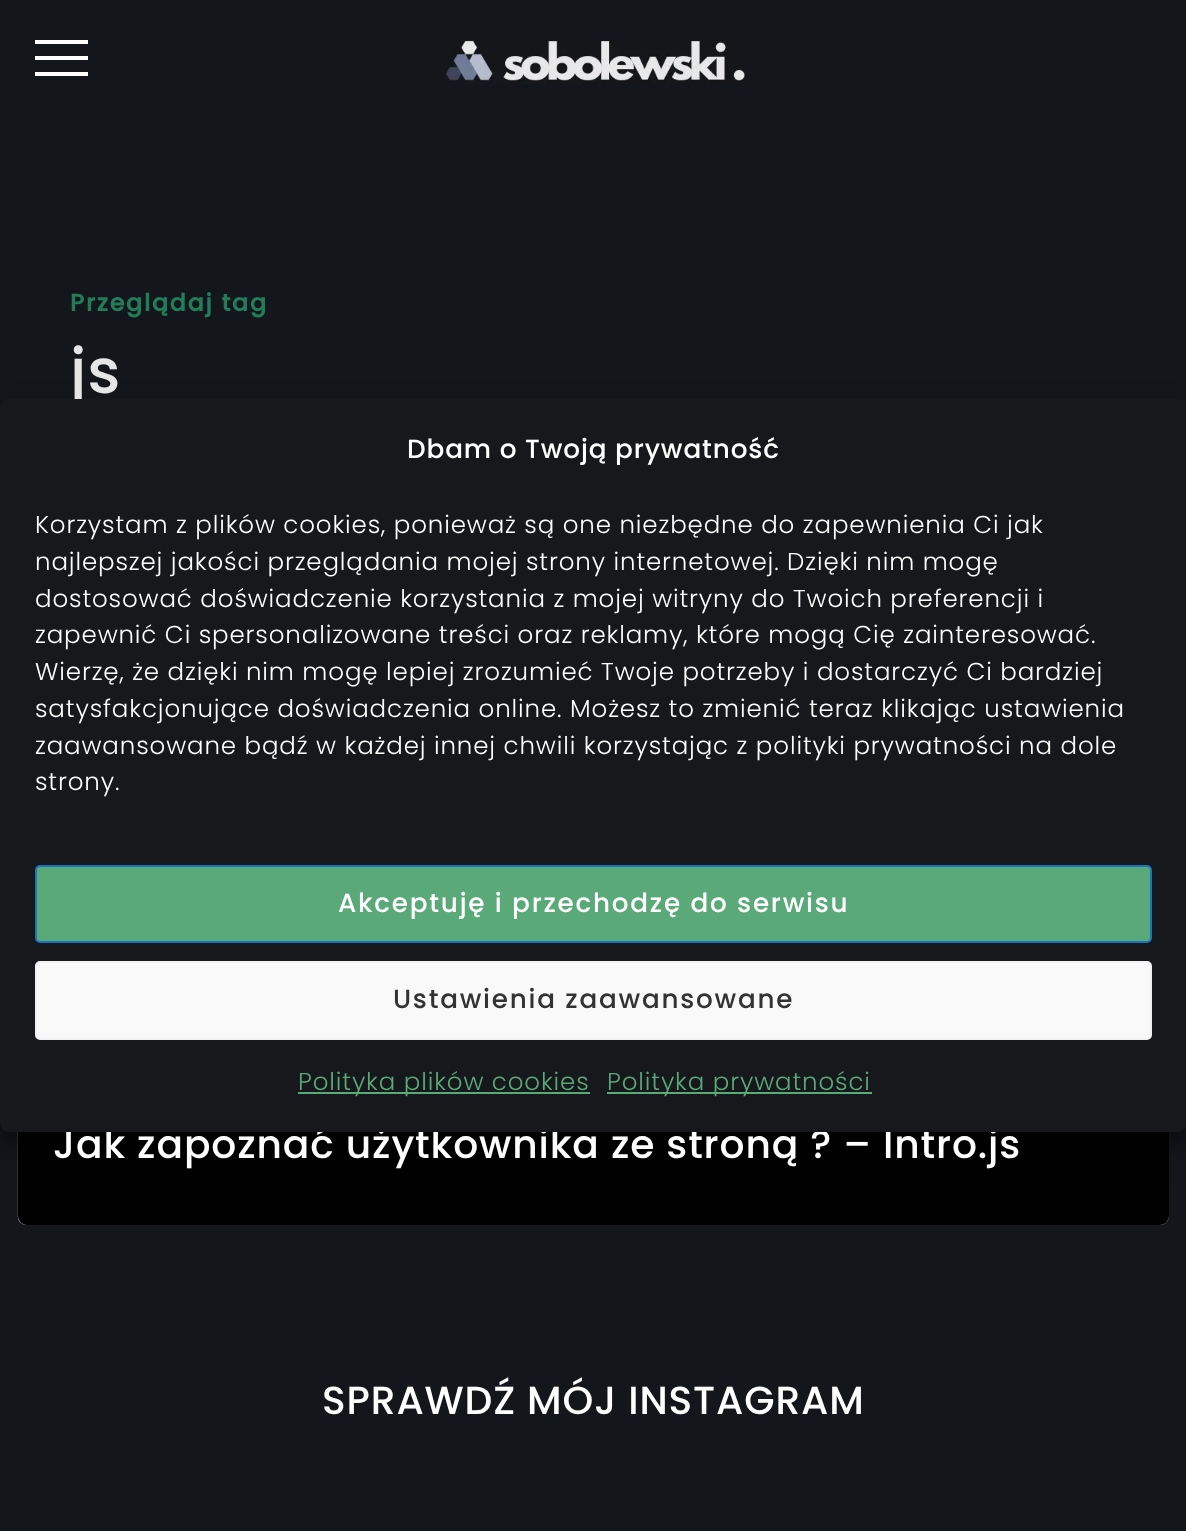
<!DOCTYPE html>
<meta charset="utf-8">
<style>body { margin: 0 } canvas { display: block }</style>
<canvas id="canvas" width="1186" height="1531"></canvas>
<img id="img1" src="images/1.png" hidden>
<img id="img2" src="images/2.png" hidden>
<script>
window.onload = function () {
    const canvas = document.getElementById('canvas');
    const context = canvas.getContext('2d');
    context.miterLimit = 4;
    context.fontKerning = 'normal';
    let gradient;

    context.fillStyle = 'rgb(19, 22, 27)';
    context.fillRect(0, 0, 1186, 1531);
    context.fillStyle = 'rgb(255, 255, 255)';
    context.fillRect(35, 40, 53, 4);
    context.fillRect(35, 56, 53, 4);
    context.fillRect(35, 72, 53, 4);
    context.drawImage(document.getElementById('img1'), 445, 40, 300, 44);
    context.drawImage(document.getElementById('img2'), 17, 1132, 1152, 93);
    gradient = context.createLinearGradient(593, 665, 593, 1225);
    gradient.addColorStop(0, 'rgba(0, 0, 0, 0)');
    gradient.addColorStop(0.84, 'rgb(0, 0, 0)');
    context.fillStyle = gradient;
    context.beginPath();
    context.roundRect(18, 665, 1151, 560, 9);
    context.fill();
    context.fillStyle = 'rgba(0, 0, 0, 0.23)';
    context.filter = 'blur(5px)';
    context.beginPath();
    context.roundRect(0, 410, 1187, 733, 9);
    context.fill();
    context.filter = 'none';
    context.fillStyle = 'rgba(0, 0, 0, 0.19)';
    context.filter = 'blur(17.5px)';
    context.beginPath();
    context.roundRect(0, 417, 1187, 733, 9);
    context.fill();
    context.filter = 'none';
    context.letterSpacing = '1.75px';
    context.font = 'bold 23.75px Poppins';
    context.fillStyle = 'rgb(35, 123, 87)';
    context.fillText('Przeglądaj tag', 70, 311);
    context.letterSpacing = '0.88px';
    context.font = '500 62px Poppins';
    context.fillStyle = 'rgb(230, 230, 230)';
    context.fillText('js', 70, 393);
    context.font = '500 39.2px Poppins';
    context.fillStyle = 'rgb(255, 255, 255)';
    context.fillText('Jak zapoznać użytkownika ze stroną ? – Intro.js', 53, 1158);
    context.fillText('SPRAWDŹ MÓJ INSTAGRAM', 322, 1414);
    context.fillStyle = 'rgb(22, 24, 28)';
    context.beginPath();
    context.roundRect(0, 399, 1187, 733, 9);
    context.fill();
    context.font = '500 26.25px Poppins';
    context.fillStyle = 'rgb(255, 255, 255)';
    context.fillText('Dbam o Twoją prywatność', 407, 458);
    context.font = '300 24.5px Poppins';
    context.fillText('Korzystam z plików cookies, ponieważ są one niezbędne do zapewnienia Ci jak', 35, 533);
    context.fillText('najlepszej jakości przeglądania mojej strony internetowej. Dzięki nim mogę', 35, 570);
    context.fillText('dostosować doświadczenie korzystania z mojej witryny do Twoich preferencji i', 35, 607);
    context.fillText('zapewnić Ci spersonalizowane treści oraz reklamy, które mogą Cię zainteresować.', 35, 643);
    context.fillText('Wierzę, że dzięki nim mogę lepiej zrozumieć Twoje potrzeby i dostarczyć Ci bardziej', 35, 680);
    context.fillText('satysfakcjonujące doświadczenia online. Możesz to zmienić teraz klikając ustawienia', 35, 717);
    context.fillText('zaawansowane bądź w każdej innej chwili korzystając z polityki prywatności na dole', 35, 754);
    context.fillText('strony.', 35, 790);
    context.fillStyle = 'rgb(90, 170, 121)';
    context.beginPath();
    context.roundRect(36, 866, 1115, 76, 4);
    context.fill();
    context.strokeStyle = 'rgb(30, 115, 190)';
    context.lineWidth = 2;
    context.stroke();
    context.letterSpacing = '1.75px';
    context.font = '500 26.25px Poppins';
    context.fillStyle = 'rgb(255, 255, 255)';
    context.fillText('Akceptuję i przechodzę do serwisu', 338, 912);
    context.fillStyle = 'rgb(249, 249, 249)';
    context.beginPath();
    context.roundRect(36, 962, 1115, 77, 4);
    context.fill();
    context.strokeStyle = 'rgb(242, 242, 242)';
    context.stroke();
    context.fillStyle = 'rgb(51, 51, 51)';
    context.fillText('Ustawienia zaawansowane', 393, 1008);
    context.fillStyle = 'rgb(90, 170, 121)';
    context.fillRect(298, 1092, 292, 2);
    context.letterSpacing = '0.88px';
    context.font = '300 24.5px Poppins';
    context.fillText('Polityka plików cookies', 298, 1090);
    context.fillRect(607, 1092, 265, 2);
    context.fillText('Polityka prywatności', 607, 1090);
};
</script>
